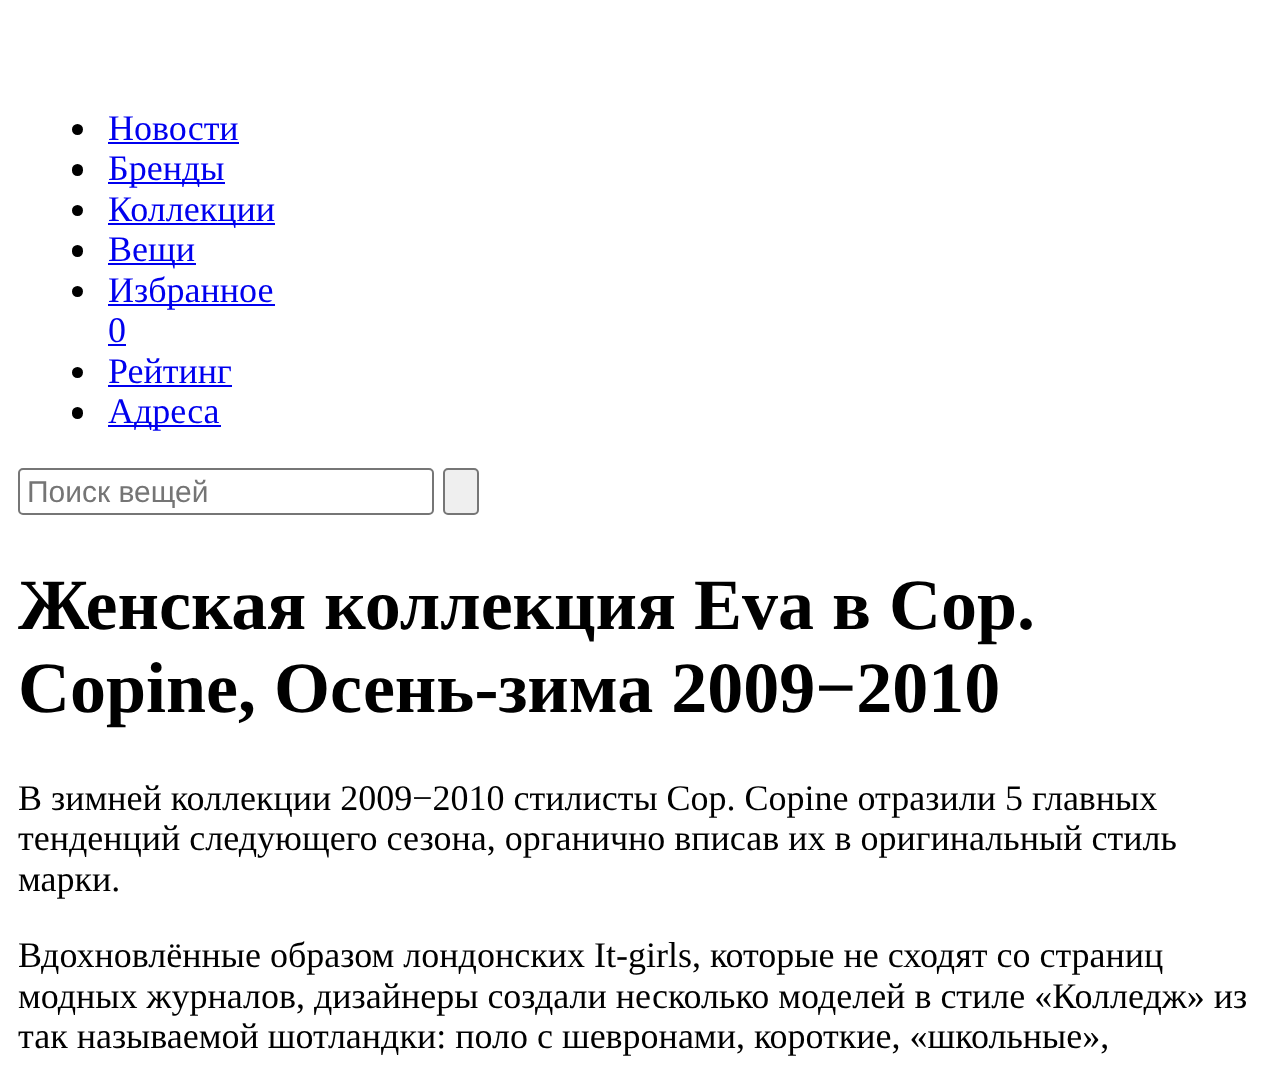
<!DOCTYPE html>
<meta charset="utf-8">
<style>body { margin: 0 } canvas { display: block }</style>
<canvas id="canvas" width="1284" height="1074"></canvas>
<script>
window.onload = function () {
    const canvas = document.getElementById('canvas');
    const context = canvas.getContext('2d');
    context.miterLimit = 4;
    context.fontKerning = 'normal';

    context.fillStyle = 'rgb(255, 255, 255)';
    context.fillRect(0, 0, 1284, 1074);
    context.fillStyle = 'rgb(0, 0, 0)';
    context.beginPath();
    context.arc(77.5, 129.5, 5.5, 0, 2 * Math.PI);
    context.fill();
    context.fillStyle = 'rgb(0, 0, 238)';
    context.fillRect(108, 142, 131, 2);
    context.fillStyle = 'rgb(0, 0, 0)';
    context.beginPath();
    context.roundRect(72, 164, 11, 12, 5.5);
    context.fill();
    context.fillStyle = 'rgb(0, 0, 238)';
    context.fillRect(108, 182, 117, 2);
    context.fillStyle = 'rgb(0, 0, 0)';
    context.beginPath();
    context.arc(77.5, 210.5, 5.5, 0, 2 * Math.PI);
    context.fill();
    context.fillStyle = 'rgb(0, 0, 238)';
    context.fillRect(108, 223, 167, 2);
    context.fillStyle = 'rgb(0, 0, 0)';
    context.beginPath();
    context.roundRect(72, 245, 11, 12, 5.5);
    context.fill();
    context.fillStyle = 'rgb(0, 0, 238)';
    context.fillRect(108, 263, 88, 2);
    context.fillStyle = 'rgb(0, 0, 0)';
    context.beginPath();
    context.arc(77.5, 291.5, 5.5, 0, 2 * Math.PI);
    context.fill();
    context.fillStyle = 'rgb(0, 0, 238)';
    context.fillRect(108, 304, 167, 2);
    context.fillRect(108, 344, 18, 2);
    context.fillStyle = 'rgb(0, 0, 0)';
    context.beginPath();
    context.arc(77.5, 372.5, 5.5, 0, 2 * Math.PI);
    context.fill();
    context.fillStyle = 'rgb(0, 0, 238)';
    context.fillRect(108, 385, 124, 2);
    context.fillStyle = 'rgb(0, 0, 0)';
    context.beginPath();
    context.roundRect(72, 407, 11, 12, 5.5);
    context.fill();
    context.fillStyle = 'rgb(0, 0, 238)';
    context.fillRect(108, 425, 113, 2);
    context.beginPath();
    context.roundRect(19, 469, 414, 45, 4);
    context.strokeStyle = 'rgb(118, 118, 118)';
    context.lineWidth = 2;
    context.stroke();
    context.fillStyle = 'rgb(239, 239, 239)';
    context.beginPath();
    context.roundRect(444, 469, 34, 45, 4);
    context.fill();
    context.stroke();
    context.font = '36px Liberation Serif';
    context.fillStyle = 'rgb(0, 0, 238)';
    context.fillText('Новости', 108, 140);
    context.fillText('Бренды', 108, 180);
    context.fillText('Коллекции', 108, 221);
    context.fillText('Вещи', 108, 261);
    context.fillText('Избранное', 108, 302);
    context.fillText('0', 108, 342);
    context.fillText('Рейтинг', 108, 383);
    context.fillText('Адреса', 108, 423);
    context.font = '30px Liberation Sans';
    context.fillStyle = 'rgb(117, 117, 117)';
    context.fillText('Поиск вещей', 27, 502);
    context.font = 'bold 72px Liberation Serif';
    context.fillStyle = 'rgb(0, 0, 0)';
    context.fillText('Женская коллекция Eva в Cop.', 18, 629);
    context.fillText('Copine, Осень-зима 2009−2010', 18, 712);
    context.font = '36px Liberation Serif';
    context.fillText('В зимней коллекции 2009−2010 стилисты Cop. Copine отразили 5 главных', 18, 810);
    context.fillText('тенденций следующего сезона, органично вписав их в оригинальный стиль', 18, 850);
    context.fillText('марки.', 18, 891);
    context.fillText('Вдохновлённые образом лондонских It-girls, которые не сходят со страниц', 18, 967);
    context.fillText('модных журналов, дизайнеры создали несколько моделей в стиле «Колледж» из', 18, 1008);
    context.fillText('так называемой шотландки: поло с шевронами, короткие, «школьные»,', 18, 1048);
};
</script>
